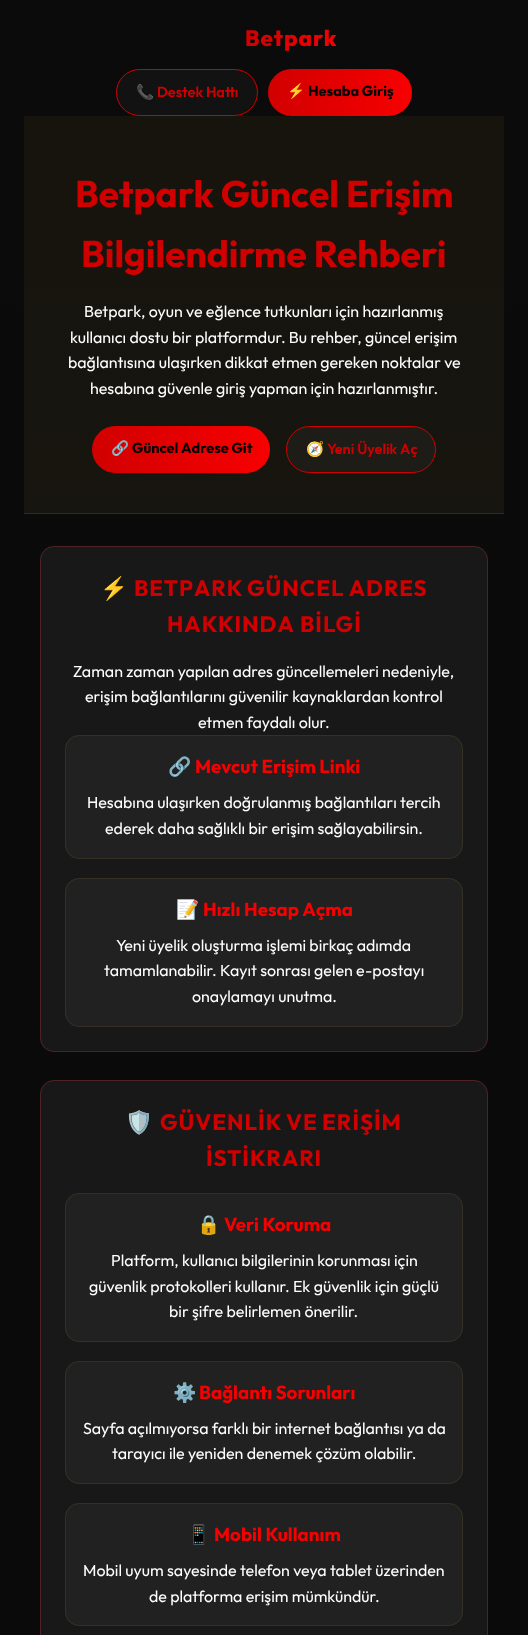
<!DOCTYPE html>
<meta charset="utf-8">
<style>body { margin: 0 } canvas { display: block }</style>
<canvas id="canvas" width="528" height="1635"></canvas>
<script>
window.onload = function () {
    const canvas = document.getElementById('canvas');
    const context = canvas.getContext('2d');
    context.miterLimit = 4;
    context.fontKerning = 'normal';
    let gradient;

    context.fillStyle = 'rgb(255, 255, 255)';
    context.fillRect(0, 0, 528, 1635);
    gradient = context.createRadialGradient(264, -244, 0, 264, -244, 2694);
    gradient.addColorStop(0, 'rgb(12, 11, 11)');
    gradient.addColorStop(0.7, 'rgb(10, 10, 10)');
    context.fillStyle = gradient;
    context.fillRect(0, 0, 528, 1635);
    context.fillStyle = 'rgb(19, 18, 18)';
    context.beginPath();
    context.roundRect(116.5, 69.5, 141, 46, 23);
    context.fill();
    context.strokeStyle = 'rgb(209, 0, 0)';
    context.stroke();
    gradient = context.createLinearGradient(268, 93, 412, 93);
    gradient.addColorStop(0, 'rgb(209, 0, 0)');
    gradient.addColorStop(1, 'rgb(248, 0, 0)');
    context.fillStyle = gradient;
    context.beginPath();
    context.roundRect(268, 69, 144, 47, 23.5);
    context.fill();
    gradient = context.createLinearGradient(264, 116, 264, 513);
    gradient.addColorStop(0, 'rgb(22, 20, 13)');
    gradient.addColorStop(1, 'rgb(23, 21, 15)');
    context.fillStyle = gradient;
    context.fillRect(24, 116, 480, 397);
    context.fillStyle = 'rgb(75, 32, 27)';
    context.fillRect(24, 513, 480, 1);
    gradient = context.createLinearGradient(92, 450, 270, 450);
    gradient.addColorStop(0, 'rgb(209, 0, 0)');
    gradient.addColorStop(1, 'rgb(248, 0, 0)');
    context.fillStyle = gradient;
    context.beginPath();
    context.roundRect(92, 426, 178, 47, 23.5);
    context.fill();
    context.fillStyle = 'rgb(30, 28, 22)';
    context.beginPath();
    context.roundRect(286.5, 426.5, 149, 46, 23);
    context.fill();
    context.stroke();
    context.fillStyle = 'rgb(24, 24, 24)';
    context.beginPath();
    context.roundRect(40, 546, 448, 506, 14);
    context.fill();
    context.beginPath();
    context.roundRect(40.5, 546.5, 447, 505, 13.5);
    context.strokeStyle = 'rgba(234, 69, 69, 0.25)';
    context.stroke();
    context.fillStyle = 'rgb(33, 33, 33)';
    context.beginPath();
    context.roundRect(65, 735, 398, 124, 14);
    context.fill();
    context.beginPath();
    context.roundRect(65.5, 735.5, 397, 123, 13.5);
    context.strokeStyle = 'rgba(234, 191, 69, 0.1)';
    context.stroke();
    context.beginPath();
    context.roundRect(65, 878, 398, 149, 14);
    context.fill();
    context.beginPath();
    context.roundRect(65.5, 878.5, 397, 148, 13.5);
    context.stroke();
    context.fillStyle = 'rgb(24, 24, 24)';
    context.beginPath();
    context.roundRect(40, 1080, 448, 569, 14);
    context.fill();
    context.beginPath();
    context.roundRect(40.5, 1080.5, 447, 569, 13.5);
    context.strokeStyle = 'rgba(234, 69, 69, 0.25)';
    context.stroke();
    context.fillStyle = 'rgb(33, 33, 33)';
    context.beginPath();
    context.roundRect(65, 1193, 398, 149, 14);
    context.fill();
    context.beginPath();
    context.roundRect(65.5, 1193.5, 397, 148, 13.5);
    context.strokeStyle = 'rgba(234, 191, 69, 0.1)';
    context.stroke();
    context.beginPath();
    context.roundRect(65, 1361, 398, 123, 14);
    context.fill();
    context.beginPath();
    context.roundRect(65.5, 1361.5, 397, 122, 13.5);
    context.stroke();
    context.beginPath();
    context.roundRect(65, 1503, 398, 123, 14);
    context.fill();
    context.beginPath();
    context.roundRect(65.5, 1503.5, 397, 122, 13.5);
    context.stroke();
    context.letterSpacing = '1px';
    context.font = '800 22.4px Outfit';
    gradient = context.createLinearGradient(245, 39, 338, 39);
    gradient.addColorStop(0, 'rgb(209, 0, 0)');
    gradient.addColorStop(1, 'rgb(248, 0, 0)');
    context.fillStyle = gradient;
    context.fillText('Betpark', 245, 46);
    context.letterSpacing = '0px';
    context.font = 'bold 14.5px Noto Color Emoji';
    context.fillStyle = 'rgb(209, 0, 0)';
    context.fillText('📞', 136, 97);
    context.font = '600 14.5px Outfit';
    context.fillText('Destek Hattı', 157, 97);
    context.font = 'bold 14.5px Noto Color Emoji';
    context.fillStyle = 'rgb(0, 0, 0)';
    context.fillText('⚡', 287, 96);
    context.font = 'bold 14.5px Outfit';
    context.fillText('Hesaba Giriş', 308, 96);
    context.font = 'bold 37.1px Outfit';
    context.fillStyle = 'rgb(209, 0, 0)';
    context.fillText('Betpark Güncel Erişim', 75, 207);
    context.fillText('Bilgilendirme Rehberi', 81, 267);
    context.font = '16px Outfit';
    context.fillStyle = 'rgb(255, 255, 255)';
    context.fillText('Betpark, oyun ve eğlence tutkunları için hazırlanmış', 84, 317);
    context.fillText('kullanıcı dostu bir platformdur. Bu rehber, güncel erişim', 70, 343);
    context.fillText('bağlantısına ulaşırken dikkat etmen gereken noktalar ve', 68, 368);
    context.fillText('hesabına güvenle giriş yapman için hazırlanmıştır.', 90, 394);
    context.font = 'bold 14.5px Noto Color Emoji';
    context.fillStyle = 'rgb(0, 0, 0)';
    context.fillText('🔗', 111, 453);
    context.font = 'bold 14.5px Outfit';
    context.fillText('Güncel Adrese Git', 132, 453);
    context.font = 'bold 14.5px Noto Color Emoji';
    context.fillStyle = 'rgb(209, 0, 0)';
    context.fillText('🧭', 306, 454);
    context.font = '600 14.5px Outfit';
    context.fillText('Yeni Üyelik Aç', 327, 454);
    context.letterSpacing = '1px';
    context.font = 'bold 22.4px "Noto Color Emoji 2"';
    context.fillText('⚡', 100, 596);
    context.wordSpacing = '-1px';
    context.font = 'bold 22.4px Outfit';
    context.fillText('BETPARK GÜNCEL ADRES', 134, 596);
    context.wordSpacing = '0px';
    context.fillText('HAKKINDA BİLGİ', 167, 632);
    context.letterSpacing = '0px';
    context.font = '16px Outfit';
    context.fillStyle = 'rgb(255, 255, 255)';
    context.fillText('Zaman zaman yapılan adres güncellemeleri nedeniyle,', 73, 677);
    context.fillText('erişim bağlantılarını güvenilir kaynaklardan kontrol', 85, 702);
    context.fillText('etmen faydalı olur.', 198, 728);
    context.font = 'bold 18.75px Noto Color Emoji';
    context.fillStyle = 'rgb(248, 0, 0)';
    context.fillText('🔗', 168, 773);
    context.font = 'bold 18.75px Outfit';
    context.fillText('Mevcut Erişim Linki', 195, 773);
    context.font = '16px Outfit';
    context.fillStyle = 'rgb(255, 255, 255)';
    context.fillText('Hesabına ulaşırken doğrulanmış bağlantıları tercih', 87, 808);
    context.fillText('ederek daha sağlıklı bir erişim sağlayabilirsin.', 105, 834);
    context.font = 'bold 18.75px Noto Color Emoji';
    context.fillStyle = 'rgb(248, 0, 0)';
    context.fillText('📝', 176, 916);
    context.font = 'bold 18.75px Outfit';
    context.fillText('Hızlı Hesap Açma', 203, 916);
    context.font = '16px Outfit';
    context.fillStyle = 'rgb(255, 255, 255)';
    context.fillText('Yeni üyelik oluşturma işlemi birkaç adımda', 116, 951);
    context.fillText('tamamlanabilir. Kayıt sonrası gelen e-postayı', 104, 976);
    context.fillText('onaylamayı unutma.', 192, 1002);
    context.letterSpacing = '1px';
    context.font = 'bold 22.4px "Noto Color Emoji 2"';
    context.fillStyle = 'rgb(209, 0, 0)';
    context.fillText('🛡️', 125, 1130);
    context.wordSpacing = '-1px';
    context.font = 'bold 22.4px Outfit';
    context.fillText('GÜVENLİK VE ERİŞİM', 160, 1130);
    context.wordSpacing = '0px';
    context.fillText('İSTİKRARI', 206, 1166);
    context.letterSpacing = '0px';
    context.font = 'bold 18.75px Noto Color Emoji';
    context.fillStyle = 'rgb(248, 0, 0)';
    context.fillText('🔒', 197, 1231);
    context.font = 'bold 18.75px Outfit';
    context.fillText('Veri Koruma', 224, 1231);
    context.font = '16px Outfit';
    context.fillStyle = 'rgb(255, 255, 255)';
    context.fillText('Platform, kullanıcı bilgilerinin korunması için', 111, 1266);
    context.fillText('güvenlik protokolleri kullanır. Ek güvenlik için güçlü', 89, 1292);
    context.fillText('bir şifre belirlemen önerilir.', 169, 1317);
    context.font = 'bold 18.75px Noto Color Emoji';
    context.fillStyle = 'rgb(248, 0, 0)';
    context.fillText('⚙️', 173, 1399);
    context.font = 'bold 18.75px Outfit';
    context.fillText('Bağlantı Sorunları', 199, 1399);
    context.font = '16px Outfit';
    context.fillStyle = 'rgb(255, 255, 255)';
    context.fillText('Sayfa açılmıyorsa farklı bir internet bağlantısı ya da', 83, 1434);
    context.fillText('tarayıcı ile yeniden denemek çözüm olabilir.', 112, 1459);
    context.font = 'bold 18.75px Noto Color Emoji';
    context.fillStyle = 'rgb(248, 0, 0)';
    context.fillText('📱', 187, 1541);
    context.font = 'bold 18.75px Outfit';
    context.fillText('Mobil Kullanım', 214, 1541);
    context.font = '16px Outfit';
    context.fillStyle = 'rgb(255, 255, 255)';
    context.fillText('Mobil uyum sayesinde telefon veya tablet üzerinden', 83, 1576);
    context.fillText('de platforma erişim mümkündür.', 149, 1602);
};
</script>
